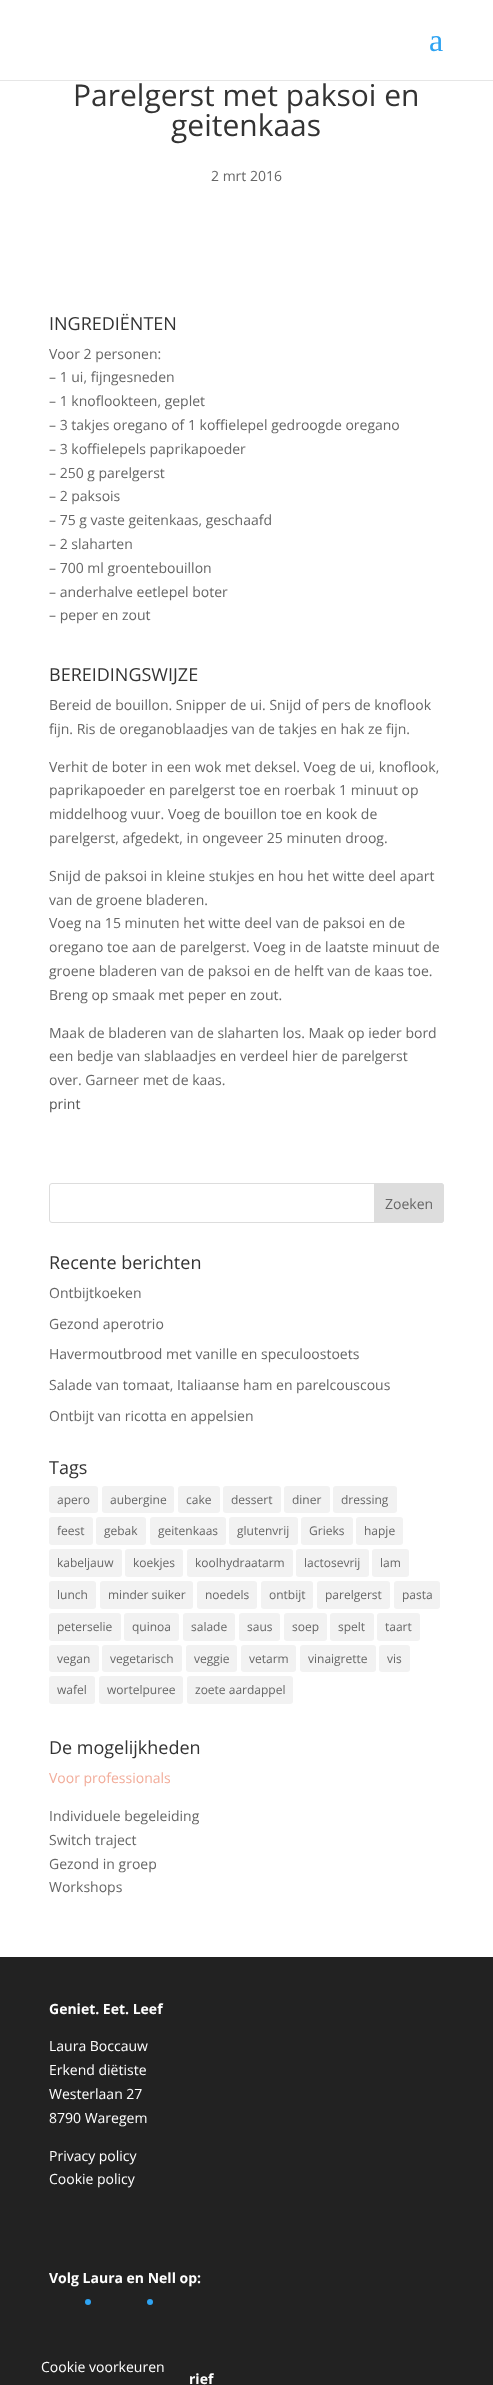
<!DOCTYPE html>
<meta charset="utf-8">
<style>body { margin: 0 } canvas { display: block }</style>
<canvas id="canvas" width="493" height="2385"></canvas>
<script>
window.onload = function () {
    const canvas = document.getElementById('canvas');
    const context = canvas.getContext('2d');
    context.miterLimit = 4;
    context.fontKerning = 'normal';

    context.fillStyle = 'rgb(255, 255, 255)';
    context.fillRect(0, 0, 493, 2385);
    context.fillStyle = 'rgb(230, 230, 230)';
    context.fillRect(0, 80, 493, 1);
    context.beginPath();
    context.roundRect(49.5, 1183.5, 394, 39, 2.5);
    context.strokeStyle = 'rgb(221, 221, 221)';
    context.stroke();
    context.fillStyle = 'rgb(221, 221, 221)';
    context.beginPath();
    context.roundRect(374.5, 1183.5, 69, 39, [0, 2.5, 2.5, 0]);
    context.fill();
    context.stroke();
    context.fillStyle = 'rgb(242, 242, 242)';
    context.beginPath();
    context.roundRect(49, 1486, 49, 27, 3);
    context.fill();
    context.beginPath();
    context.roundRect(102, 1486, 72, 27, 3);
    context.fill();
    context.beginPath();
    context.roundRect(178, 1486, 42, 27, 3);
    context.fill();
    context.beginPath();
    context.roundRect(223, 1486, 58, 27, 3);
    context.fill();
    context.beginPath();
    context.roundRect(284, 1486, 46, 27, 3);
    context.fill();
    context.beginPath();
    context.roundRect(333, 1486, 64, 27, 3);
    context.fill();
    context.beginPath();
    context.roundRect(49, 1517, 44, 28, 3);
    context.fill();
    context.beginPath();
    context.roundRect(96, 1517, 50, 28, 3);
    context.fill();
    context.beginPath();
    context.roundRect(150, 1517, 76, 28, 3);
    context.fill();
    context.beginPath();
    context.roundRect(229, 1517, 69, 28, 3);
    context.fill();
    context.beginPath();
    context.roundRect(301, 1517, 52, 28, 3);
    context.fill();
    context.beginPath();
    context.roundRect(356, 1517, 47, 28, 3);
    context.fill();
    context.beginPath();
    context.roundRect(49, 1549, 73, 28, 3);
    context.fill();
    context.beginPath();
    context.roundRect(125, 1549, 58, 28, 3);
    context.fill();
    context.beginPath();
    context.roundRect(187, 1549, 106, 28, 3);
    context.fill();
    context.beginPath();
    context.roundRect(296, 1549, 73, 28, 3);
    context.fill();
    context.beginPath();
    context.roundRect(372, 1549, 37, 28, 3);
    context.fill();
    context.beginPath();
    context.roundRect(49, 1581, 47, 28, 3);
    context.fill();
    context.beginPath();
    context.roundRect(100, 1581, 93, 28, 3);
    context.fill();
    context.beginPath();
    context.roundRect(197, 1581, 60, 28, 3);
    context.fill();
    context.beginPath();
    context.roundRect(261, 1581, 52, 28, 3);
    context.fill();
    context.beginPath();
    context.roundRect(317, 1581, 73, 28, 3);
    context.fill();
    context.beginPath();
    context.roundRect(394, 1581, 46, 28, 3);
    context.fill();
    context.beginPath();
    context.roundRect(49, 1613, 72, 28, 3);
    context.fill();
    context.beginPath();
    context.roundRect(124, 1613, 55, 28, 3);
    context.fill();
    context.beginPath();
    context.roundRect(183, 1613, 52, 28, 3);
    context.fill();
    context.beginPath();
    context.roundRect(239, 1613, 41, 28, 3);
    context.fill();
    context.beginPath();
    context.roundRect(284, 1613, 43, 28, 3);
    context.fill();
    context.beginPath();
    context.roundRect(330, 1613, 44, 28, 3);
    context.fill();
    context.beginPath();
    context.roundRect(377, 1613, 43, 28, 3);
    context.fill();
    context.beginPath();
    context.roundRect(49, 1645, 50, 27, 3);
    context.fill();
    context.beginPath();
    context.roundRect(102, 1645, 80, 27, 3);
    context.fill();
    context.beginPath();
    context.roundRect(186, 1645, 51, 27, 3);
    context.fill();
    context.beginPath();
    context.roundRect(241, 1645, 55, 27, 3);
    context.fill();
    context.beginPath();
    context.roundRect(300, 1645, 76, 27, 3);
    context.fill();
    context.beginPath();
    context.roundRect(379, 1645, 31, 27, 3);
    context.fill();
    context.beginPath();
    context.roundRect(49, 1676, 46, 28, 3);
    context.fill();
    context.beginPath();
    context.roundRect(99, 1676, 84, 28, 3);
    context.fill();
    context.beginPath();
    context.roundRect(187, 1676, 106, 28, 3);
    context.fill();
    context.fillStyle = 'rgb(34, 34, 34)';
    context.fillRect(0, 1957, 493, 428);
    context.fillStyle = 'rgb(46, 163, 242)';
    context.beginPath();
    context.arc(88, 2302, 3, 0, 2 * Math.PI);
    context.fill();
    context.beginPath();
    context.arc(150, 2302, 3, 0, 2 * Math.PI);
    context.fill();
    context.font = '32px Liberation Serif';
    context.fillText('a', 429, 51);
    context.font = '30px Open Sans';
    context.fillStyle = 'rgb(51, 51, 51)';
    context.fillText('Parelgerst met paksoi en', 73, 106);
    context.fillText('geitenkaas', 171, 136);
    context.font = '14px Open Sans';
    context.fillStyle = 'rgb(102, 102, 102)';
    context.fillText('2 mrt 2016', 211, 181);
    context.font = '18px Open Sans';
    context.fillStyle = 'rgb(51, 51, 51)';
    context.fillText('INGREDIËNTEN', 49, 330);
    context.font = '14px Open Sans';
    context.fillStyle = 'rgb(102, 102, 102)';
    context.fillText('Voor 2 personen:', 49, 359);
    context.fillText('– 1 ui, fijngesneden', 49, 382);
    context.fillText('– 1 knoflookteen, geplet', 49, 406);
    context.fillText('– 3 takjes oregano of 1 koffielepel gedroogde oregano', 49, 430);
    context.fillText('– 3 koffielepels paprikapoeder', 49, 454);
    context.fillText('– 250 g parelgerst', 49, 478);
    context.fillText('– 2 paksois', 49, 501);
    context.fillText('– 75 g vaste geitenkaas, geschaafd', 49, 525);
    context.fillText('– 2 slaharten', 49, 549);
    context.fillText('– 700 ml groentebouillon', 49, 573);
    context.fillText('– anderhalve eetlepel boter', 49, 597);
    context.fillText('– peper en zout', 49, 620);
    context.font = '18px Open Sans';
    context.fillStyle = 'rgb(51, 51, 51)';
    context.fillText('BEREIDINGSWIJZE', 49, 681);
    context.font = '14px Open Sans';
    context.fillStyle = 'rgb(102, 102, 102)';
    context.fillText('Bereid de bouillon. Snipper de ui. Snijd of pers de knoflook', 49, 710);
    context.fillText('fijn. Ris de oreganoblaadjes van de takjes en hak ze fijn.', 49, 734);
    context.fillText('Verhit de boter in een wok met deksel. Voeg de ui, knoflook,', 49, 772);
    context.fillText('paprikapoeder en parelgerst toe en roerbak 1 minuut op', 49, 795);
    context.fillText('middelhoog vuur. Voeg de bouillon toe en kook de', 49, 819);
    context.fillText('parelgerst, afgedekt, in ongeveer 25 minuten droog.', 49, 843);
    context.fillText('Snijd de paksoi in kleine stukjes en hou het witte deel apart', 49, 881);
    context.fillText('van de groene bladeren.', 49, 905);
    context.fillText('Voeg na 15 minuten het witte deel van de paksoi en de', 49, 928);
    context.fillText('oregano toe aan de parelgerst. Voeg in de laatste minuut de', 49, 952);
    context.fillText('groene bladeren van de paksoi en de helft van de kaas toe.', 49, 976);
    context.fillText('Breng op smaak met peper en zout.', 49, 1000);
    context.fillText('Maak de bladeren van de slaharten los. Maak op ieder bord', 49, 1038);
    context.fillText('een bedje van slablaadjes en verdeel hier de parelgerst', 49, 1061);
    context.fillText('over. Garneer met de kaas.', 49, 1085);
    context.fillStyle = 'rgb(85, 85, 85)';
    context.fillText('print', 49, 1109);
    context.fillStyle = 'rgb(102, 102, 102)';
    context.fillText('Zoeken', 385, 1209);
    context.font = '18px Open Sans';
    context.fillStyle = 'rgb(51, 51, 51)';
    context.fillText('Recente berichten', 49, 1269);
    context.font = '14px Open Sans';
    context.fillStyle = 'rgb(102, 102, 102)';
    context.fillText('Ontbijtkoeken', 49, 1298);
    context.fillText('Gezond aperotrio', 49, 1329);
    context.fillText('Havermoutbrood met vanille en speculoostoets', 49, 1359);
    context.fillText('Salade van tomaat, Italiaanse ham en parelcouscous', 49, 1390);
    context.fillText('Ontbijt van ricotta en appelsien', 49, 1421);
    context.font = '18px Open Sans';
    context.fillStyle = 'rgb(51, 51, 51)';
    context.fillText('Tags', 49, 1474);
    context.font = '12px Open Sans';
    context.fillStyle = 'rgb(102, 102, 102)';
    context.fillText('apero', 57, 1504);
    context.fillText('aubergine', 110, 1504);
    context.fillText('cake', 186, 1504);
    context.fillText('dessert', 231, 1504);
    context.fillText('diner', 292, 1504);
    context.fillText('dressing', 341, 1504);
    context.fillText('feest', 57, 1535);
    context.fillText('gebak', 104, 1535);
    context.fillText('geitenkaas', 158, 1535);
    context.fillText('glutenvrij', 237, 1535);
    context.fillText('Grieks', 309, 1535);
    context.fillText('hapje', 364, 1535);
    context.fillText('kabeljauw', 57, 1567);
    context.fillText('koekjes', 133, 1567);
    context.fillText('koolhydraatarm', 195, 1567);
    context.fillText('lactosevrij', 304, 1567);
    context.fillText('lam', 380, 1567);
    context.fillText('lunch', 57, 1599);
    context.fillText('minder suiker', 108, 1599);
    context.fillText('noedels', 205, 1599);
    context.fillText('ontbijt', 269, 1599);
    context.fillText('parelgerst', 325, 1599);
    context.fillText('pasta', 402, 1599);
    context.fillText('peterselie', 57, 1631);
    context.fillText('quinoa', 132, 1631);
    context.fillText('salade', 191, 1631);
    context.fillText('saus', 247, 1631);
    context.fillText('soep', 292, 1631);
    context.fillText('spelt', 338, 1631);
    context.fillText('taart', 385, 1631);
    context.fillText('vegan', 57, 1663);
    context.fillText('vegetarisch', 110, 1663);
    context.fillText('veggie', 194, 1663);
    context.fillText('vetarm', 249, 1663);
    context.fillText('vinaigrette', 308, 1663);
    context.fillText('vis', 387, 1663);
    context.fillText('wafel', 57, 1694);
    context.fillText('wortelpuree', 107, 1694);
    context.fillText('zoete aardappel', 195, 1694);
    context.font = '18px Open Sans';
    context.fillStyle = 'rgb(51, 51, 51)';
    context.fillText('De mogelijkheden', 49, 1754);
    context.font = '14px Open Sans';
    context.fillStyle = 'rgb(242, 173, 155)';
    context.fillText('Voor professionals', 49, 1783);
    context.fillStyle = 'rgb(102, 102, 102)';
    context.fillText('Individuele begeleiding', 49, 1821);
    context.fillText('Switch traject', 49, 1845);
    context.fillText('Gezond in groep', 49, 1869);
    context.fillText('Workshops', 49, 1892);
    context.font = 'bold 14px Open Sans';
    context.fillStyle = 'rgb(255, 255, 255)';
    context.fillText('Geniet. Eet. Leef', 49, 2014);
    context.font = '14px Open Sans';
    context.fillText('Laura Boccauw', 49, 2051);
    context.fillText('Erkend diëtiste', 49, 2075);
    context.fillText('Westerlaan 27', 49, 2099);
    context.fillText('8790 Waregem', 49, 2123);
    context.fillText('Privacy policy', 49, 2161);
    context.fillText('Cookie policy', 49, 2184);
    context.font = 'bold 14px Open Sans';
    context.fillText('Volg Laura en Nell op:', 49, 2283);
    context.fillText('rief', 189, 2384);
    context.font = '14px Open Sans';
    context.fillText('Cookie voorkeuren', 41, 2372);
};
</script>
